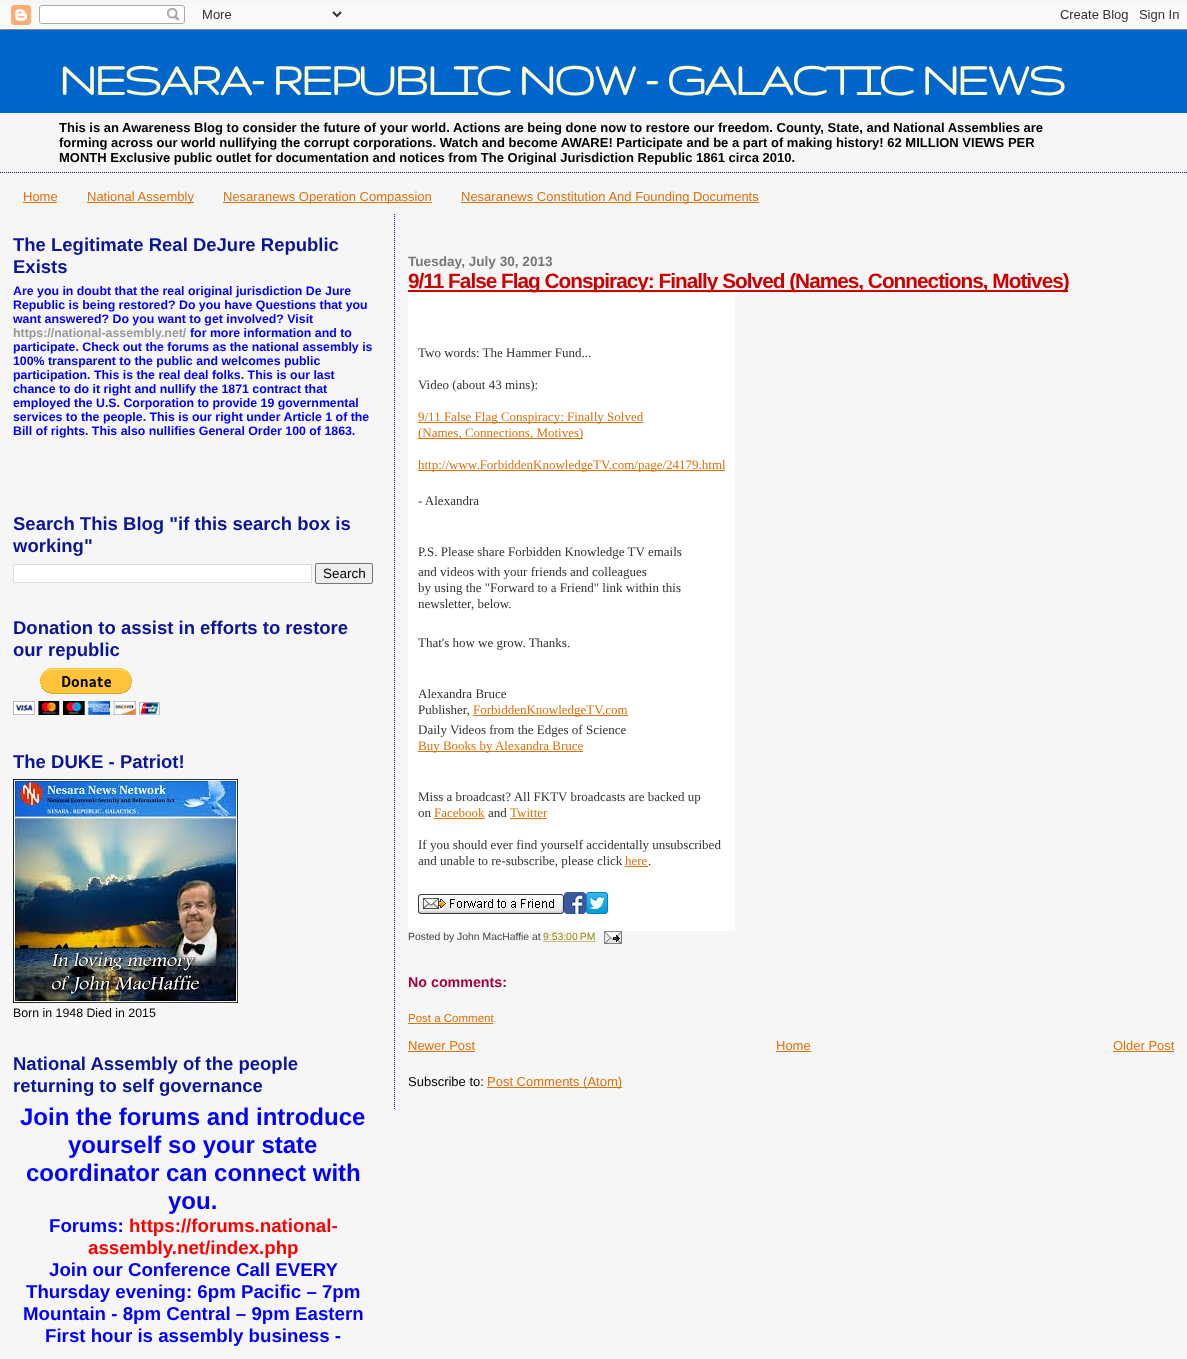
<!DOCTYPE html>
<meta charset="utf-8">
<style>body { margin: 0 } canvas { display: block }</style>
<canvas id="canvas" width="1187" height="1359"></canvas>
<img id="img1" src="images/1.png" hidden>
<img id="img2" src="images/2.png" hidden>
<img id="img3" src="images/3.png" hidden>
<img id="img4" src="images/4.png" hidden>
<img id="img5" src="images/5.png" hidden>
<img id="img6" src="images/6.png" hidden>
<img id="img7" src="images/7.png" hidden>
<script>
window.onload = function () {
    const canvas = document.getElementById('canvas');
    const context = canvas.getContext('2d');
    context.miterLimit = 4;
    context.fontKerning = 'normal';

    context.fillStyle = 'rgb(246, 246, 246)';
    context.fillRect(0, 0, 1187, 1359);
    context.drawImage(document.getElementById('img1'), 0, 5, 1187, 25);
    context.beginPath();
    context.moveTo(0, 172.5);
    context.lineTo(1187, 172.5);
    context.strokeStyle = 'rgb(10, 22, 150)';
    context.setLineDash([1, 1]);
    context.stroke();
    context.fillStyle = 'rgb(0, 102, 204)';
    context.fillRect(0, 30, 1187, 83);
    context.fillStyle = 'rgb(222, 112, 8)';
    context.fillRect(23, 202, 34, 1);
    context.fillRect(87, 202, 107, 1);
    context.fillRect(223, 202, 209, 1);
    context.fillRect(461, 202, 298, 1);
    context.fillStyle = 'rgb(255, 255, 255)';
    context.beginPath();
    context.rect(13.5, 564.5, 298, 18);
    context.fill();
    context.strokeStyle = 'rgb(221, 221, 221)';
    context.setLineDash([]);
    context.stroke();
    context.fillStyle = 'rgb(239, 239, 239)';
    context.beginPath();
    context.roundRect(315.5, 563.5, 57, 20, 1.5);
    context.fill();
    context.strokeStyle = 'rgb(118, 118, 118)';
    context.stroke();
    context.drawImage(document.getElementById('img2'), 13, 668, 147, 47);
    context.drawImage(document.getElementById('img3'), 13, 779, 225, 224);
    context.beginPath();
    context.moveTo(394.5, 214);
    context.lineTo(394.5, 1109);
    context.strokeStyle = 'rgb(10, 22, 150)';
    context.setLineDash([1, 1]);
    context.stroke();
    context.fillStyle = 'rgb(204, 0, 0)';
    context.fillRect(408, 290, 660, 2);
    context.fillStyle = 'rgb(255, 255, 255)';
    context.fillRect(408, 293, 327, 638);
    context.fillStyle = 'rgb(222, 112, 8)';
    context.fillRect(418, 422, 225, 1);
    context.fillRect(418, 438, 165, 1);
    context.fillRect(418, 470, 307, 1);
    context.fillRect(473, 715, 155, 1);
    context.fillRect(418, 751, 165, 1);
    context.fillRect(434, 818, 51, 1);
    context.fillRect(510, 818, 37, 1);
    context.fillRect(625, 866, 23, 1);
    context.drawImage(document.getElementById('img4'), 418, 894, 146, 20);
    context.drawImage(document.getElementById('img5'), 564, 892, 22, 22);
    context.drawImage(document.getElementById('img6'), 586, 892, 22, 22);
    context.beginPath();
    context.moveTo(543.5, 941.5);
    context.lineTo(595.5, 941.5);
    context.strokeStyle = 'rgb(150, 138, 10)';
    context.stroke();
    context.drawImage(document.getElementById('img7'), 604, 931, 18, 13);
    context.fillRect(408, 1023, 85, 1);
    context.fillRect(408, 1051, 67, 1);
    context.fillRect(776, 1051, 35, 1);
    context.fillRect(1113, 1051, 61, 1);
    context.fillRect(487, 1087, 135, 1);
    context.letterSpacing = '-2px';
    context.font = 'bold 50px Gruppo';
    context.fillStyle = 'rgb(255, 255, 204)';
    context.fillText('NESARA- REPUBLIC NOW - GALACTIC NEWS', 59, 95);
    context.letterSpacing = '0px';
    context.font = 'bold 13px Liberation Sans';
    context.fillStyle = 'rgb(0, 0, 0)';
    context.fillText('This is an Awareness Blog to consider the future of your world. Actions are being done now to restore our freedom. County, State, and National Assemblies are', 59, 132);
    context.fillText('forming across our world nullifying the corrupt corporations. Watch and become AWARE! Participate and be a part of making history! 62 MILLION VIEWS PER', 59, 147);
    context.fillText('MONTH Exclusive public outlet for documentation and notices from The Original Jurisdiction Republic 1861 circa 2010.', 59, 162);
    context.font = '13px Liberation Sans';
    context.fillStyle = 'rgb(222, 112, 8)';
    context.fillText('Home', 23, 201);
    context.fillText('National Assembly', 87, 201);
    context.fillText('Nesaranews Operation Compassion', 223, 201);
    context.fillText('Nesaranews Constitution And Founding Documents', 461, 201);
    context.font = 'bold 18.5px Liberation Sans';
    context.fillStyle = 'rgb(10, 22, 150)';
    context.fillText('The Legitimate Real DeJure Republic', 13, 251);
    context.fillText('Exists', 13, 273);
    context.font = 'bold 12.35px Liberation Sans';
    context.fillStyle = 'rgb(0, 0, 255)';
    context.fillText('Are you in doubt that the real original jurisdiction De Jure', 13, 295);
    context.fillText('Republic is being restored? Do you have Questions that you', 13, 309);
    context.fillText('want answered? Do you want to get involved? Visit', 13, 323);
    context.fillStyle = 'rgb(153, 153, 153)';
    context.fillText('https://national-assembly.net/', 13, 337);
    context.fillStyle = 'rgb(0, 0, 255)';
    context.fillText('for more information and to', 190, 337);
    context.fillText('participate. Check out the forums as the national assembly is', 13, 351);
    context.fillText('100% transparent to the public and welcomes public', 13, 365);
    context.fillText('participation. This is the real deal folks. This is our last', 13, 379);
    context.fillText('chance to do it right and nullify the 1871 contract that', 13, 393);
    context.fillText('employed the U.S. Corporation to provide 19 governmental', 13, 407);
    context.fillText('services to the people. This is our right under Article 1 of the', 13, 421);
    context.fillText('Bill of rights. This also nullifies General Order 100 of 1863.', 13, 435);
    context.font = 'bold 18.5px Liberation Sans';
    context.fillStyle = 'rgb(10, 22, 150)';
    context.fillText('Search This Blog "if this search box is', 13, 530);
    context.fillText('working"', 13, 552);
    context.font = '13.5px Liberation Sans';
    context.fillStyle = 'rgb(0, 0, 0)';
    context.fillText('Search', 323, 578);
    context.font = 'bold 18.5px Liberation Sans';
    context.fillStyle = 'rgb(10, 22, 150)';
    context.fillText('Donation to assist in efforts to restore', 13, 634);
    context.fillText('our republic', 13, 656);
    context.fillText('The DUKE - Patriot!', 13, 768);
    context.font = '12.35px Liberation Sans';
    context.fillStyle = 'rgb(0, 0, 0)';
    context.fillText('Born in 1948 Died in 2015', 13, 1017);
    context.font = 'bold 18.5px Liberation Sans';
    context.fillStyle = 'rgb(10, 22, 150)';
    context.fillText('National Assembly of the people', 13, 1070);
    context.fillText('returning to self governance', 13, 1092);
    context.font = 'bold 24px Liberation Sans';
    context.fillStyle = 'rgb(0, 0, 255)';
    context.fillText('Join the forums and introduce', 20, 1125);
    context.fillText('yourself so your state', 68, 1153);
    context.fillText('coordinator can connect with', 26, 1181);
    context.fillText('you.', 168, 1209);
    context.font = 'bold 18.7px Liberation Sans';
    context.fillText('Forums:', 49, 1232);
    context.fillStyle = 'rgb(255, 0, 0)';
    context.fillText('https://forums.national-', 129, 1232);
    context.fillText('assembly.net/index.php', 88, 1254);
    context.fillStyle = 'rgb(0, 0, 255)';
    context.fillText('Join our Conference Call EVERY', 49, 1276);
    context.fillText('Thursday evening: 6pm Pacific – 7pm', 26, 1298);
    context.fillText('Mountain - 8pm Central – 9pm Eastern', 23, 1320);
    context.fillText('First hour is assembly business -', 45, 1342);
    context.font = 'bold 13.6px Liberation Sans';
    context.fillStyle = 'rgb(119, 119, 119)';
    context.fillText('Tuesday, July 30, 2013', 408, 266);
    context.letterSpacing = '-1px';
    context.font = 'bold 20.8px Liberation Sans';
    context.fillStyle = 'rgb(204, 0, 0)';
    context.fillText('9/11 False Flag Conspiracy: Finally Solved (Names, Connections, Motives)', 408, 288);
    context.letterSpacing = '0px';
    context.font = '13px Liberation Serif';
    context.fillStyle = 'rgb(51, 51, 51)';
    context.fillText('Two words: The Hammer Fund...', 418, 357);
    context.fillText('Video (about 43 mins):', 418, 389);
    context.fillStyle = 'rgb(222, 112, 8)';
    context.fillText('9/11 False Flag Conspiracy: Finally Solved', 418, 421);
    context.fillText('(Names, Connections, Motives)', 418, 437);
    context.fillText('http://www.ForbiddenKnowledgeTV.com/page/24179.html', 418, 469);
    context.fillStyle = 'rgb(51, 51, 51)';
    context.fillText('- Alexandra', 418, 505);
    context.fillText('P.S. Please share Forbidden Knowledge TV emails', 418, 556);
    context.fillText('and videos with your friends and colleagues', 418, 576);
    context.fillText('by using the "Forward to a Friend" link within this', 418, 592);
    context.fillText('newsletter, below.', 418, 608);
    context.fillText('That\'s how we grow. Thanks.', 418, 647);
    context.fillText('Alexandra Bruce', 418, 698);
    context.fillText('Publisher,', 418, 714);
    context.fillStyle = 'rgb(222, 112, 8)';
    context.fillText('ForbiddenKnowledgeTV.com', 473, 714);
    context.fillStyle = 'rgb(51, 51, 51)';
    context.fillText('Daily Videos from the Edges of Science', 418, 734);
    context.fillStyle = 'rgb(222, 112, 8)';
    context.fillText('Buy Books by Alexandra Bruce', 418, 750);
    context.fillStyle = 'rgb(51, 51, 51)';
    context.fillText('Miss a broadcast? All FKTV broadcasts are backed up', 418, 801);
    context.fillText('on', 418, 817);
    context.fillStyle = 'rgb(222, 112, 8)';
    context.fillText('Facebook', 434, 817);
    context.fillStyle = 'rgb(51, 51, 51)';
    context.fillText('and', 488, 817);
    context.fillStyle = 'rgb(222, 112, 8)';
    context.fillText('Twitter', 510, 817);
    context.fillStyle = 'rgb(51, 51, 51)';
    context.fillText('If you should ever find yourself accidentally unsubscribed', 418, 849);
    context.fillText('and unable to re-subscribe, please click', 418, 865);
    context.fillStyle = 'rgb(222, 112, 8)';
    context.fillText('here', 625, 865);
    context.fillStyle = 'rgb(51, 51, 51)';
    context.fillText('.', 648, 865);
    context.font = '10.4px Liberation Sans';
    context.fillStyle = 'rgb(68, 68, 68)';
    context.fillText('Posted by John MacHaffie at', 408, 940);
    context.fillStyle = 'rgb(150, 138, 10)';
    context.fillText('9:53:00 PM', 543, 940);
    context.font = 'bold 14.25px Liberation Sans';
    context.fillStyle = 'rgb(170, 0, 51)';
    context.fillText('No comments:', 408, 987);
    context.font = '11.5px Liberation Sans';
    context.fillStyle = 'rgb(222, 112, 8)';
    context.fillText('Post a Comment', 408, 1022);
    context.font = '13px Liberation Sans';
    context.fillText('Newer Post', 408, 1050);
    context.fillText('Home', 776, 1050);
    context.fillText('Older Post', 1113, 1050);
    context.fillStyle = 'rgb(0, 0, 0)';
    context.fillText('Subscribe to:', 408, 1086);
    context.fillStyle = 'rgb(222, 112, 8)';
    context.fillText('Post Comments (Atom)', 487, 1086);
};
</script>
